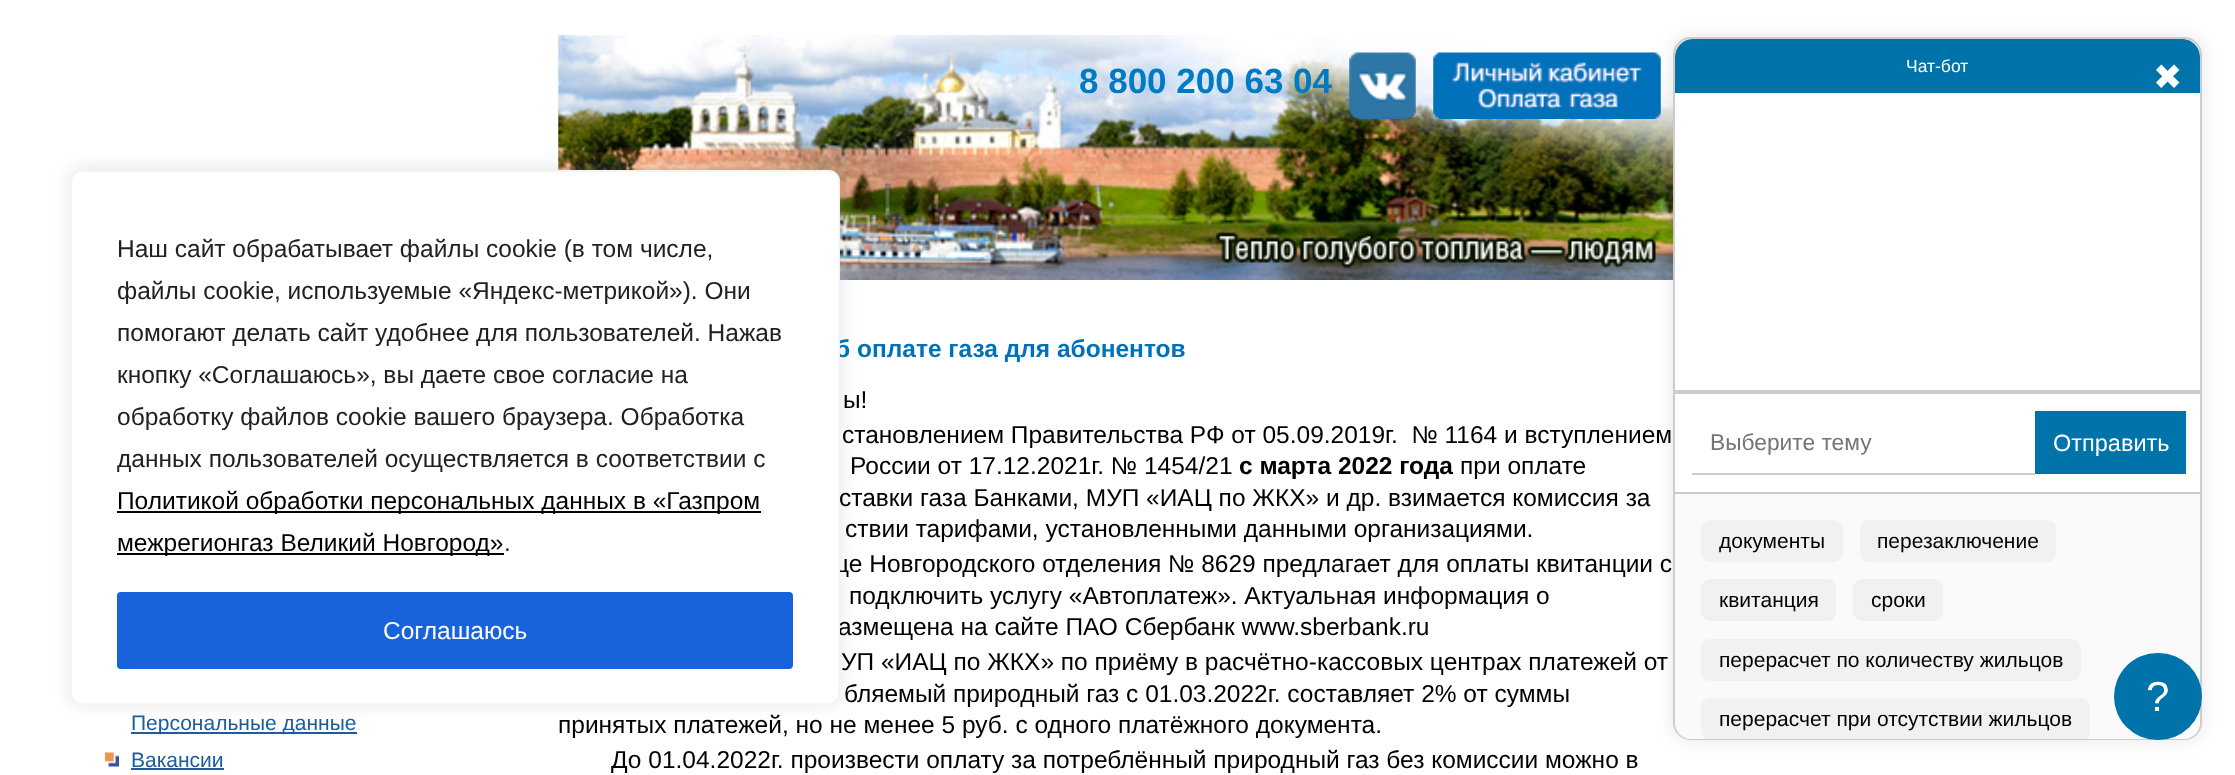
<!DOCTYPE html>
<meta charset="utf-8">
<style>body { margin: 0 } canvas { display: block }</style>
<canvas id="canvas" width="2235" height="775"></canvas>
<img id="img1" src="images/2.png" hidden>
<img id="img2" src="images/4.png" hidden>
<img id="img3" src="images/1.png" hidden>
<img id="img4" src="images/3.png" hidden>
<script>
window.onload = function () {
    const canvas = document.getElementById('canvas');
    const context = canvas.getContext('2d');
    context.miterLimit = 4;
    context.fontKerning = 'normal';

    context.fillStyle = 'rgb(255, 255, 255)';
    context.fillRect(0, 0, 2235, 775);
    context.drawImage(document.getElementById('img1'), 558, 35, 1121, 245);
    context.drawImage(document.getElementById('img2'), 1433, 52, 228, 67);
    context.fillStyle = 'rgba(0, 0, 0, 0.1)';
    context.filter = 'blur(9px)';
    context.beginPath();
    context.roundRect(1673, 37, 529, 703, 18);
    context.fill();
    context.filter = 'none';
    context.fillStyle = 'rgb(255, 255, 255)';
    context.beginPath();
    context.roundRect(1674, 38, 527, 701, 17);
    context.fill();
    context.strokeStyle = 'rgb(204, 204, 204)';
    context.lineWidth = 2;
    context.stroke();
    context.save();
    context.beginPath();
    context.roundRect(1675, 39, 525, 700, 16);
    context.clip();
    context.fillStyle = 'rgb(0, 115, 170)';
    context.beginPath();
    context.roundRect(1675, 39, 525, 54, [18, 18, 0, 0]);
    context.fill();
    context.restore();
    context.fillStyle = 'rgb(204, 204, 204)';
    context.fillRect(1675, 390, 525, 4);
    context.fillRect(1692, 473, 343, 2);
    context.fillStyle = 'rgb(0, 115, 170)';
    context.fillRect(2035, 411, 151, 63);
    context.fillStyle = 'rgb(250, 250, 250)';
    context.beginPath();
    context.roundRect(1675, 492, 525, 247, [0, 0, 16, 16]);
    context.fill();
    context.fillStyle = 'rgb(204, 204, 204)';
    context.fillRect(1675, 492, 525, 2);
    context.fillStyle = 'rgb(241, 241, 241)';
    context.beginPath();
    context.roundRect(1701, 520, 142, 42, 9);
    context.fill();
    context.beginPath();
    context.roundRect(1860, 520, 196, 42, 9);
    context.fill();
    context.beginPath();
    context.roundRect(1701, 579, 135, 42, 9);
    context.fill();
    context.beginPath();
    context.roundRect(1853, 579, 90, 42, 9);
    context.fill();
    context.beginPath();
    context.roundRect(1701, 639, 380, 42, 9);
    context.fill();
    context.save();
    context.beginPath();
    context.rect(1675, 494, 525, 245);
    context.clip();
    context.beginPath();
    context.roundRect(1701, 698, 389, 42, 9);
    context.fill();
    context.restore();
    context.fillStyle = 'rgb(0, 115, 170)';
    context.beginPath();
    context.roundRect(2114, 653, 88, 87, 43.5);
    context.fill();
    context.fillStyle = 'rgb(28, 93, 162)';
    context.fillRect(131, 732, 226, 2);
    context.drawImage(document.getElementById('img3'), 105, 752, 14, 15);
    context.fillRect(131, 768, 93, 2);
    context.drawImage(document.getElementById('img4'), 1349, 52, 67, 67);
    context.fillStyle = 'rgba(172, 171, 171, 0.3)';
    context.filter = 'blur(9px)';
    context.beginPath();
    context.roundRect(70, 168, 770, 536, 11);
    context.fill();
    context.filter = 'none';
    context.font = '17.5px Liberation Sans';
    context.fillStyle = 'rgb(255, 255, 255)';
    context.fillText('Чат-бот', 1906, 72);
    context.font = '35px DejaVu Sans';
    context.fillText('✖', 2153, 89);
    context.font = '22.75px Liberation Sans';
    context.fillStyle = 'rgb(117, 117, 117)';
    context.fillText('Выберите тему', 1710, 450);
    context.font = '23.5px Liberation Sans';
    context.fillStyle = 'rgb(255, 255, 255)';
    context.fillText('Отправить', 2053, 451);
    context.font = '21px Liberation Sans';
    context.fillStyle = 'rgb(0, 0, 0)';
    context.fillText('документы', 1719, 548);
    context.fillText('перезаключение', 1877, 548);
    context.fillText('квитанция', 1719, 607);
    context.fillText('сроки', 1871, 607);
    context.fillText('перерасчет по количеству жильцов', 1719, 667);
    context.fillText('перерасчет при отсутствии жильцов', 1719, 726);
    context.font = '42px Liberation Sans';
    context.fillStyle = 'rgb(255, 255, 255)';
    context.fillText('?', 2146, 711);
    context.font = '21px Liberation Sans';
    context.fillStyle = 'rgb(28, 93, 162)';
    context.fillText('Персональные данные', 131, 730);
    context.fillText('Вакансии', 131, 767);
    context.font = 'bold 35px Liberation Sans';
    context.fillStyle = 'rgb(0, 122, 194)';
    context.fillText('8 800 200 63 04', 1079, 93);
    context.font = 'bold 24.5px Liberation Sans';
    context.fillStyle = 'rgb(0, 114, 186)';
    context.fillText('б оплате газа для абонентов', 835, 357);
    context.font = '24.5px Liberation Sans';
    context.fillStyle = 'rgb(0, 0, 0)';
    context.fillText('ы!', 843, 408);
    context.fillText('становлением Правительства РФ от 05.09.2019г.  № 1164 и вступлением', 842, 443);
    context.fillText('России от 17.12.2021г. № 1454/21', 850, 474);
    context.font = 'bold 24.5px Liberation Sans';
    context.fillText('с марта 2022 года', 1239, 474);
    context.font = '24.5px Liberation Sans';
    context.fillText('при оплате', 1460, 474);
    context.fillText('ставки газа Банками, МУП «ИАЦ по ЖКХ» и др. взимается комиссия за', 839, 506);
    context.fillText('ствии тарифами, установленными данными организациями.', 845, 537);
    context.fillText('це Новгородского отделения № 8629 предлагает для оплаты квитанции с', 835, 572);
    context.fillText('подключить услугу «Автоплатеж». Актуальная информация о', 849, 604);
    context.fillText('азмещена на сайте ПАО Сбербанк www.sberbank.ru', 838, 635);
    context.fillText('УП «ИАЦ по ЖКХ» по приёму в расчётно-кассовых центрах платежей от', 841, 670);
    context.fillText('бляемый природный газ с 01.03.2022г. составляет 2% от суммы', 844, 702);
    context.fillText('принятых платежей, но не менее 5 руб. с одного платёжного документа.', 558, 733);
    context.fillText('До 01.04.2022г. произвести оплату за потреблённый природный газ без комиссии можно в', 611, 768);
    context.fillStyle = 'rgb(255, 255, 255)';
    context.beginPath();
    context.roundRect(71, 171, 768, 533, 10);
    context.fill();
    context.strokeStyle = 'rgb(244, 244, 244)';
    context.stroke();
    context.fillStyle = 'rgb(33, 33, 33)';
    context.fillText('Наш сайт обрабатывает файлы cookie (в том числе,', 117, 257);
    context.fillText('файлы cookie, используемые «Яндекс-метрикой»). Они', 117, 299);
    context.fillText('помогают делать сайт удобнее для пользователей. Нажав', 117, 341);
    context.fillText('кнопку «Соглашаюсь», вы даете свое согласие на', 117, 383);
    context.fillText('обработку файлов cookie вашего браузера. Обработка', 117, 425);
    context.fillText('данных пользователей осуществляется в соответствии с', 117, 467);
    context.fillStyle = 'rgb(0, 0, 0)';
    context.fillRect(117, 511, 644, 2);
    context.fillText('Политикой обработки персональных данных в «Газпром', 117, 509);
    context.fillRect(117, 553, 387, 2);
    context.fillText('межрегионгаз Великий Новгород»', 117, 551);
    context.fillStyle = 'rgb(33, 33, 33)';
    context.fillText('.', 504, 551);
    context.fillStyle = 'rgb(24, 99, 220)';
    context.beginPath();
    context.roundRect(119, 594, 672, 73, 2);
    context.fill();
    context.strokeStyle = 'rgb(24, 99, 220)';
    context.lineWidth = 4;
    context.stroke();
    context.fillStyle = 'rgb(255, 255, 255)';
    context.fillText('Соглашаюсь', 383, 639);
};
</script>
